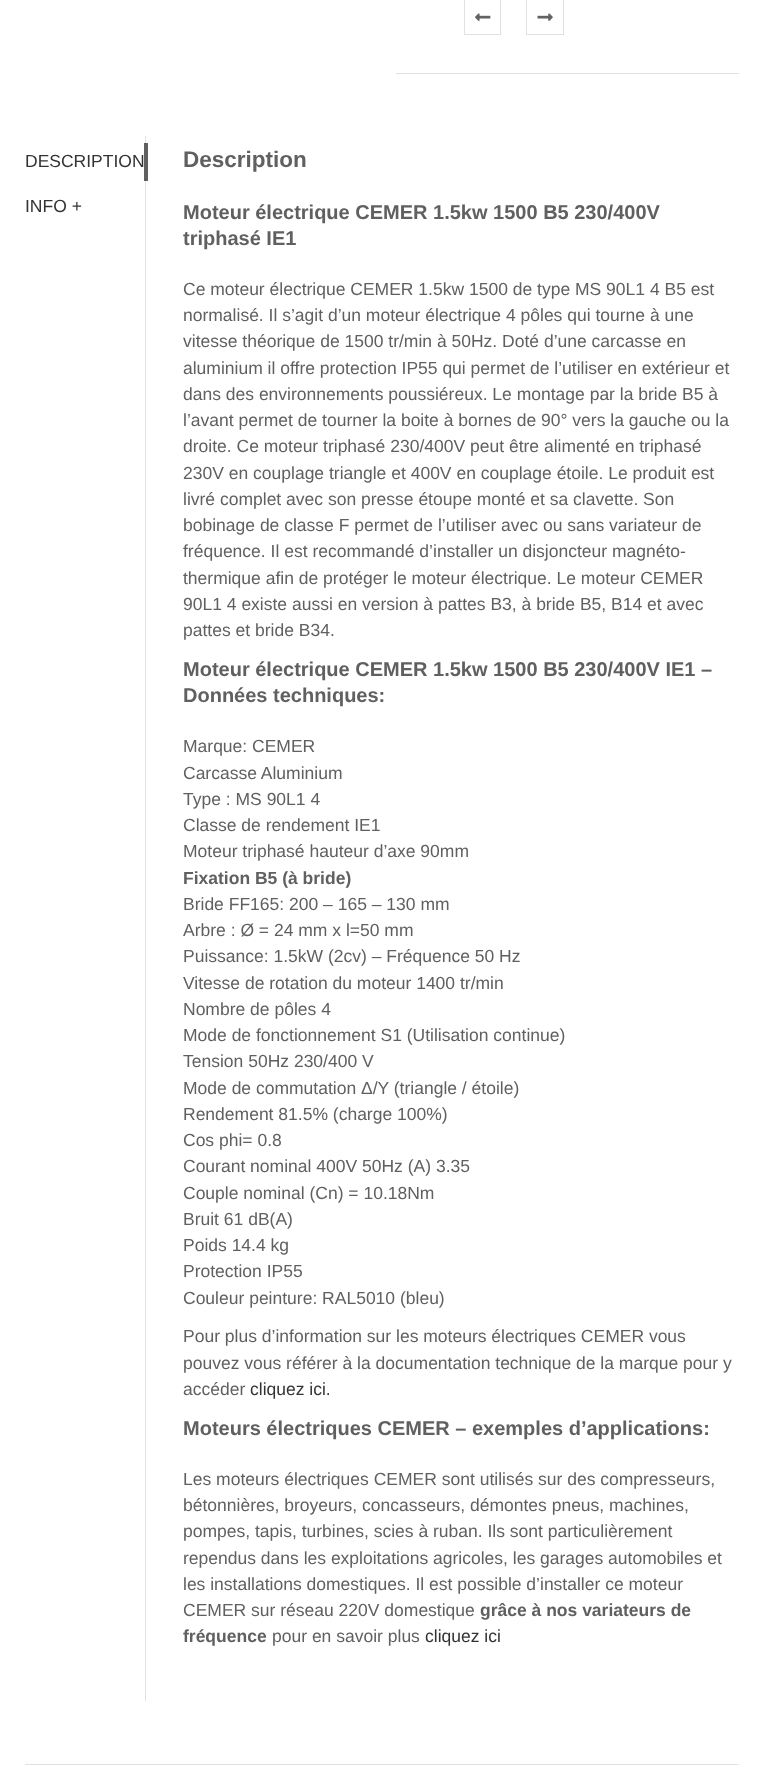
<!DOCTYPE html>
<meta charset="utf-8">
<style>body { margin: 0 } canvas { display: block }</style>
<canvas id="canvas" width="763" height="1785"></canvas>
<img id="img1" src="images/1.png" hidden>
<img id="img2" src="images/2.png" hidden>
<script>
window.onload = function () {
    const canvas = document.getElementById('canvas');
    const context = canvas.getContext('2d');
    context.miterLimit = 4;
    context.fontKerning = 'normal';

    context.fillStyle = 'rgb(255, 255, 255)';
    context.fillRect(0, 0, 763, 1785);
    context.fillStyle = 'rgb(225, 225, 225)';
    context.fillRect(396, 73, 343, 1);
    context.strokeStyle = 'rgb(225, 225, 225)';
    context.strokeRect(464.5, -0.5, 36, 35);
    context.drawImage(document.getElementById('img1'), 475, 13, 16, 8);
    context.strokeRect(526.5, -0.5, 37, 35);
    context.drawImage(document.getElementById('img2'), 537, 13, 16, 8);
    context.fillRect(145, 136, 1, 1565);
    context.fillStyle = 'rgb(96, 96, 96)';
    context.fillRect(144, 143, 4, 38);
    context.fillStyle = 'rgb(225, 225, 225)';
    context.fillRect(25, 1764, 714, 1);
    context.font = '17.5px Liberation Sans';
    context.fillStyle = 'rgb(51, 51, 51)';
    context.fillText('DESCRIPTION', 25, 167);
    context.fillText('INFO +', 25, 212);
    context.font = 'bold 22.5px Liberation Sans';
    context.fillStyle = 'rgb(96, 96, 96)';
    context.fillText('Description', 183, 167);
    context.font = 'bold 20px Liberation Sans';
    context.fillText('Moteur électrique CEMER 1.5kw 1500 B5 230/400V', 183, 219);
    context.fillText('triphasé IE1', 183, 245);
    context.font = '17.5px Liberation Sans';
    context.fillText('Ce moteur électrique CEMER 1.5kw 1500 de type MS 90L1 4 B5 est', 183, 295);
    context.fillText('normalisé. Il s’agit d’un moteur électrique 4 pôles qui tourne à une', 183, 321);
    context.fillText('vitesse théorique de 1500 tr/min à 50Hz. Doté d’une carcasse en', 183, 347);
    context.fillText('aluminium il offre protection IP55 qui permet de l’utiliser en extérieur et', 183, 374);
    context.fillText('dans des environnements poussiéreux. Le montage par la bride B5 à', 183, 400);
    context.fillText('l’avant permet de tourner la boite à bornes de 90° vers la gauche ou la', 183, 426);
    context.fillText('droite. Ce moteur triphasé 230/400V peut être alimenté en triphasé', 183, 452);
    context.fillText('230V en couplage triangle et 400V en couplage étoile. Le produit est', 183, 479);
    context.fillText('livré complet avec son presse étoupe monté et sa clavette. Son', 183, 505);
    context.fillText('bobinage de classe F permet de l’utiliser avec ou sans variateur de', 183, 531);
    context.fillText('fréquence. Il est recommandé d’installer un disjoncteur magnéto-', 183, 557);
    context.fillText('thermique afin de protéger le moteur électrique. Le moteur CEMER', 183, 584);
    context.fillText('90L1 4 existe aussi en version à pattes B3, à bride B5, B14 et avec', 183, 610);
    context.fillText('pattes et bride B34.', 183, 636);
    context.font = 'bold 20px Liberation Sans';
    context.fillText('Moteur électrique CEMER 1.5kw 1500 B5 230/400V IE1 –', 183, 676);
    context.fillText('Données techniques:', 183, 702);
    context.font = '17.5px Liberation Sans';
    context.fillText('Marque: CEMER', 183, 752);
    context.fillText('Carcasse Aluminium', 183, 779);
    context.fillText('Type : MS 90L1 4', 183, 805);
    context.fillText('Classe de rendement IE1', 183, 831);
    context.fillText('Moteur triphasé hauteur d’axe 90mm', 183, 857);
    context.font = 'bold 17.5px Liberation Sans';
    context.fillText('Fixation B5 (à bride)', 183, 884);
    context.font = '17.5px Liberation Sans';
    context.fillText('Bride FF165: 200 – 165 – 130 mm', 183, 910);
    context.fillText('Arbre : Ø = 24 mm x l=50 mm', 183, 936);
    context.fillText('Puissance: 1.5kW (2cv) – Fréquence 50 Hz', 183, 962);
    context.fillText('Vitesse de rotation du moteur 1400 tr/min', 183, 989);
    context.fillText('Nombre de pôles 4', 183, 1015);
    context.fillText('Mode de fonctionnement S1 (Utilisation continue)', 183, 1041);
    context.fillText('Tension 50Hz 230/400 V', 183, 1067);
    context.fillText('Mode de commutation Δ/Y (triangle / étoile)', 183, 1094);
    context.fillText('Rendement 81.5% (charge 100%)', 183, 1120);
    context.fillText('Cos phi= 0.8', 183, 1146);
    context.fillText('Courant nominal 400V 50Hz (A) 3.35', 183, 1172);
    context.fillText('Couple nominal (Cn) = 10.18Nm', 183, 1199);
    context.fillText('Bruit 61 dB(A)', 183, 1225);
    context.fillText('Poids 14.4 kg', 183, 1251);
    context.fillText('Protection IP55', 183, 1277);
    context.fillText('Couleur peinture: RAL5010 (bleu)', 183, 1304);
    context.fillText('Pour plus d’information sur les moteurs électriques CEMER vous', 183, 1342);
    context.fillText('pouvez vous référer à la documentation technique de la marque pour y', 183, 1369);
    context.fillText('accéder', 183, 1395);
    context.fillStyle = 'rgb(51, 51, 51)';
    context.fillText('cliquez ici.', 250, 1395);
    context.font = 'bold 20px Liberation Sans';
    context.fillStyle = 'rgb(96, 96, 96)';
    context.fillText('Moteurs électriques CEMER – exemples d’applications:', 183, 1435);
    context.font = '17.5px Liberation Sans';
    context.fillText('Les moteurs électriques CEMER sont utilisés sur des compresseurs,', 183, 1485);
    context.fillText('bétonnières, broyeurs, concasseurs, démontes pneus, machines,', 183, 1511);
    context.fillText('pompes, tapis, turbines, scies à ruban. Ils sont particulièrement', 183, 1537);
    context.fillText('rependus dans les exploitations agricoles, les garages automobiles et', 183, 1564);
    context.fillText('les installations domestiques. Il est possible d’installer ce moteur', 183, 1590);
    context.fillText('CEMER sur réseau 220V domestique', 183, 1616);
    context.font = 'bold 17.5px Liberation Sans';
    context.fillText('grâce à nos variateurs de', 480, 1616);
    context.fillText('fréquence', 183, 1642);
    context.font = '17.5px Liberation Sans';
    context.fillText('pour en savoir plus', 272, 1642);
    context.fillStyle = 'rgb(51, 51, 51)';
    context.fillText('cliquez ici', 425, 1642);
};
</script>
